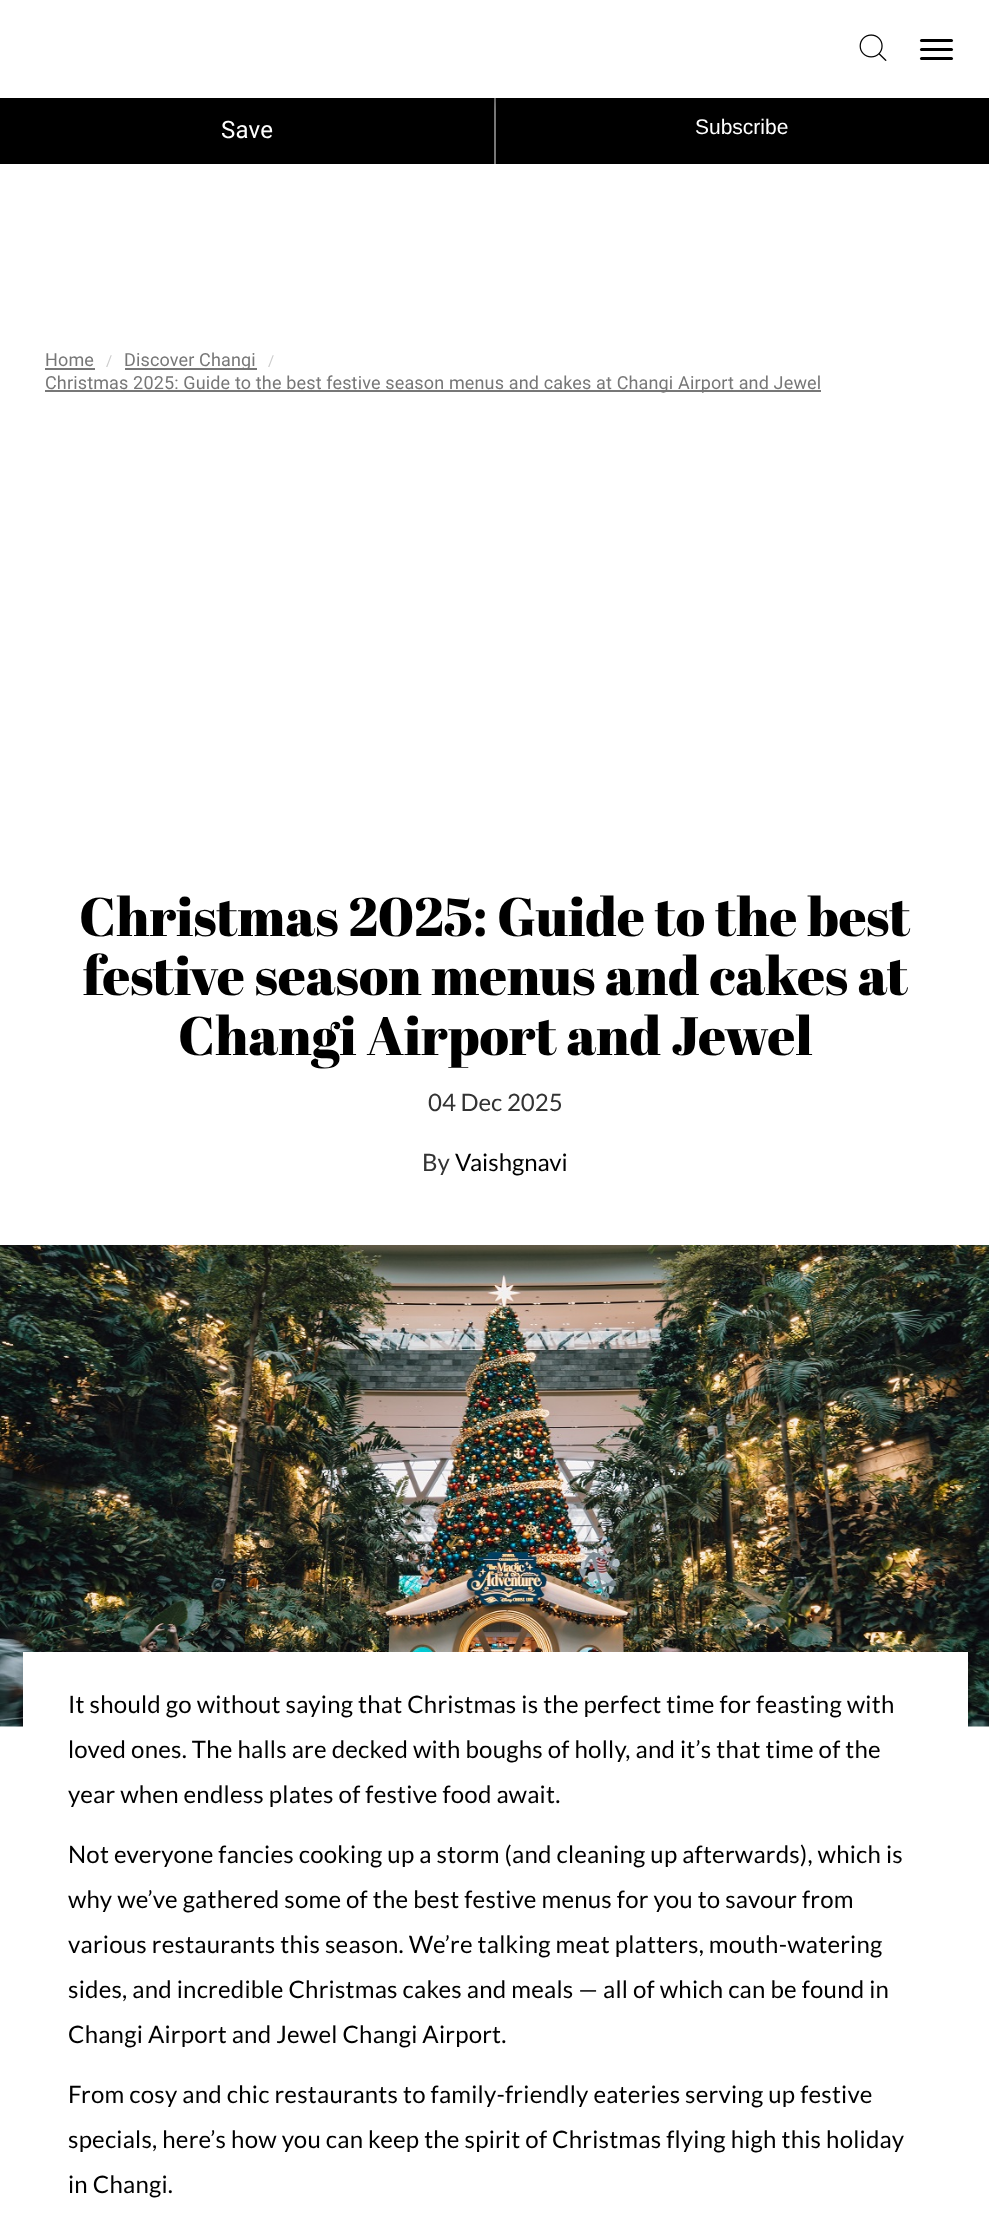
<!DOCTYPE html>
<meta charset="utf-8">
<style>body { margin: 0 } canvas { display: block }</style>
<canvas id="canvas" width="989" height="2213"></canvas>
<img id="img1" src="images/1.png" hidden>
<img id="img2" src="images/2.png" hidden>
<script>
window.onload = function () {
    const canvas = document.getElementById('canvas');
    const context = canvas.getContext('2d');
    context.miterLimit = 4;
    context.fontKerning = 'normal';

    context.fillStyle = 'rgb(255, 255, 255)';
    context.fillRect(0, 0, 989, 2213);
    context.fillStyle = 'rgb(0, 0, 0)';
    context.fillRect(0, 98, 989, 66);
    context.fillStyle = 'rgb(119, 119, 119)';
    context.fillRect(494, 98, 2, 66);
    context.fillStyle = 'rgba(0, 0, 0, 0.2)';
    context.filter = 'blur(4px)';
    context.beginPath();
    context.rect(3, 5, 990, 97);
    context.fill();
    context.filter = 'none';
    context.fillStyle = 'rgb(255, 255, 255)';
    context.fillRect(0, 0, 989, 98);
    context.drawImage(document.getElementById('img1'), 859, 34, 28, 27);
    context.fillStyle = 'rgb(0, 0, 0)';
    context.beginPath();
    context.roundRect(920, 39, 33, 3, 1.5);
    context.fill();
    context.beginPath();
    context.roundRect(920, 48, 33, 3, 1.5);
    context.fill();
    context.beginPath();
    context.roundRect(920, 57, 33, 3, 1.5);
    context.fill();
    context.fillStyle = 'rgb(119, 119, 119)';
    context.fillRect(45, 368, 50, 2);
    context.fillRect(125, 368, 132, 2);
    context.fillRect(45, 390, 776, 2);
    context.drawImage(document.getElementById('img2'), 0, 1245, 989, 482);
    context.fillStyle = 'rgb(255, 255, 255)';
    context.fillRect(23, 1652, 945, 75);
    context.letterSpacing = '0.23px';
    context.font = '24px Roboto';
    context.fillText('Save', 221, 138);
    context.letterSpacing = '0px';
    context.font = '21px Liberation Sans';
    context.fillText('Subscribe', 695, 134);
    context.letterSpacing = '0.15px';
    context.font = '18px Roboto';
    context.fillStyle = 'rgb(119, 119, 119)';
    context.fillText('Home', 45, 366);
    context.font = '15px Roboto';
    context.fillStyle = 'rgb(204, 204, 204)';
    context.fillText('/', 106, 366);
    context.font = '18px Roboto';
    context.fillStyle = 'rgb(119, 119, 119)';
    context.fillText('Discover Changi', 124, 366);
    context.font = '15px Roboto';
    context.fillStyle = 'rgb(204, 204, 204)';
    context.fillText('/', 268, 366);
    context.font = '18px Roboto';
    context.fillStyle = 'rgb(119, 119, 119)';
    context.fillText('Christmas 2025: Guide to the best festive season menus and cakes at Changi Airport and Jewel', 45, 389);
    context.letterSpacing = '0px';
    context.font = '54px Abril Fatface';
    context.fillStyle = 'rgb(0, 0, 0)';
    context.fillText('Christmas 2025: Guide to the best', 79, 936);
    context.fillText('festive season menus and cakes at', 83, 995);
    context.fillText('Changi Airport and Jewel', 178, 1055);
    context.font = '24px Lato';
    context.fillStyle = 'rgb(51, 51, 51)';
    context.fillText('04 Dec 2025', 428, 1111);
    context.fillText('By', 422, 1171);
    context.fillStyle = 'rgb(0, 0, 0)';
    context.fillText('Vaishgnavi', 455, 1171);
    context.letterSpacing = '0.23px';
    context.fillText('It should go without saying that Christmas is the perfect time for feasting with', 68, 1713);
    context.fillText('loved ones. The halls are decked with boughs of holly, and it’s that time of the', 68, 1758);
    context.fillText('year when endless plates of festive food await.', 68, 1803);
    context.fillText('Not everyone fancies cooking up a storm (and cleaning up afterwards), which is', 68, 1863);
    context.fillText('why we’ve gathered some of the best festive menus for you to savour from', 68, 1908);
    context.fillText('various restaurants this season. We’re talking meat platters, mouth-watering', 68, 1953);
    context.fillText('sides, and incredible Christmas cakes and meals — all of which can be found in', 68, 1998);
    context.fillText('Changi Airport and Jewel Changi Airport.', 68, 2043);
    context.fillText('From cosy and chic restaurants to family-friendly eateries serving up festive', 68, 2103);
    context.fillText('specials, here’s how you can keep the spirit of Christmas flying high this holiday', 68, 2148);
    context.fillText('in Changi.', 68, 2193);
};
</script>
